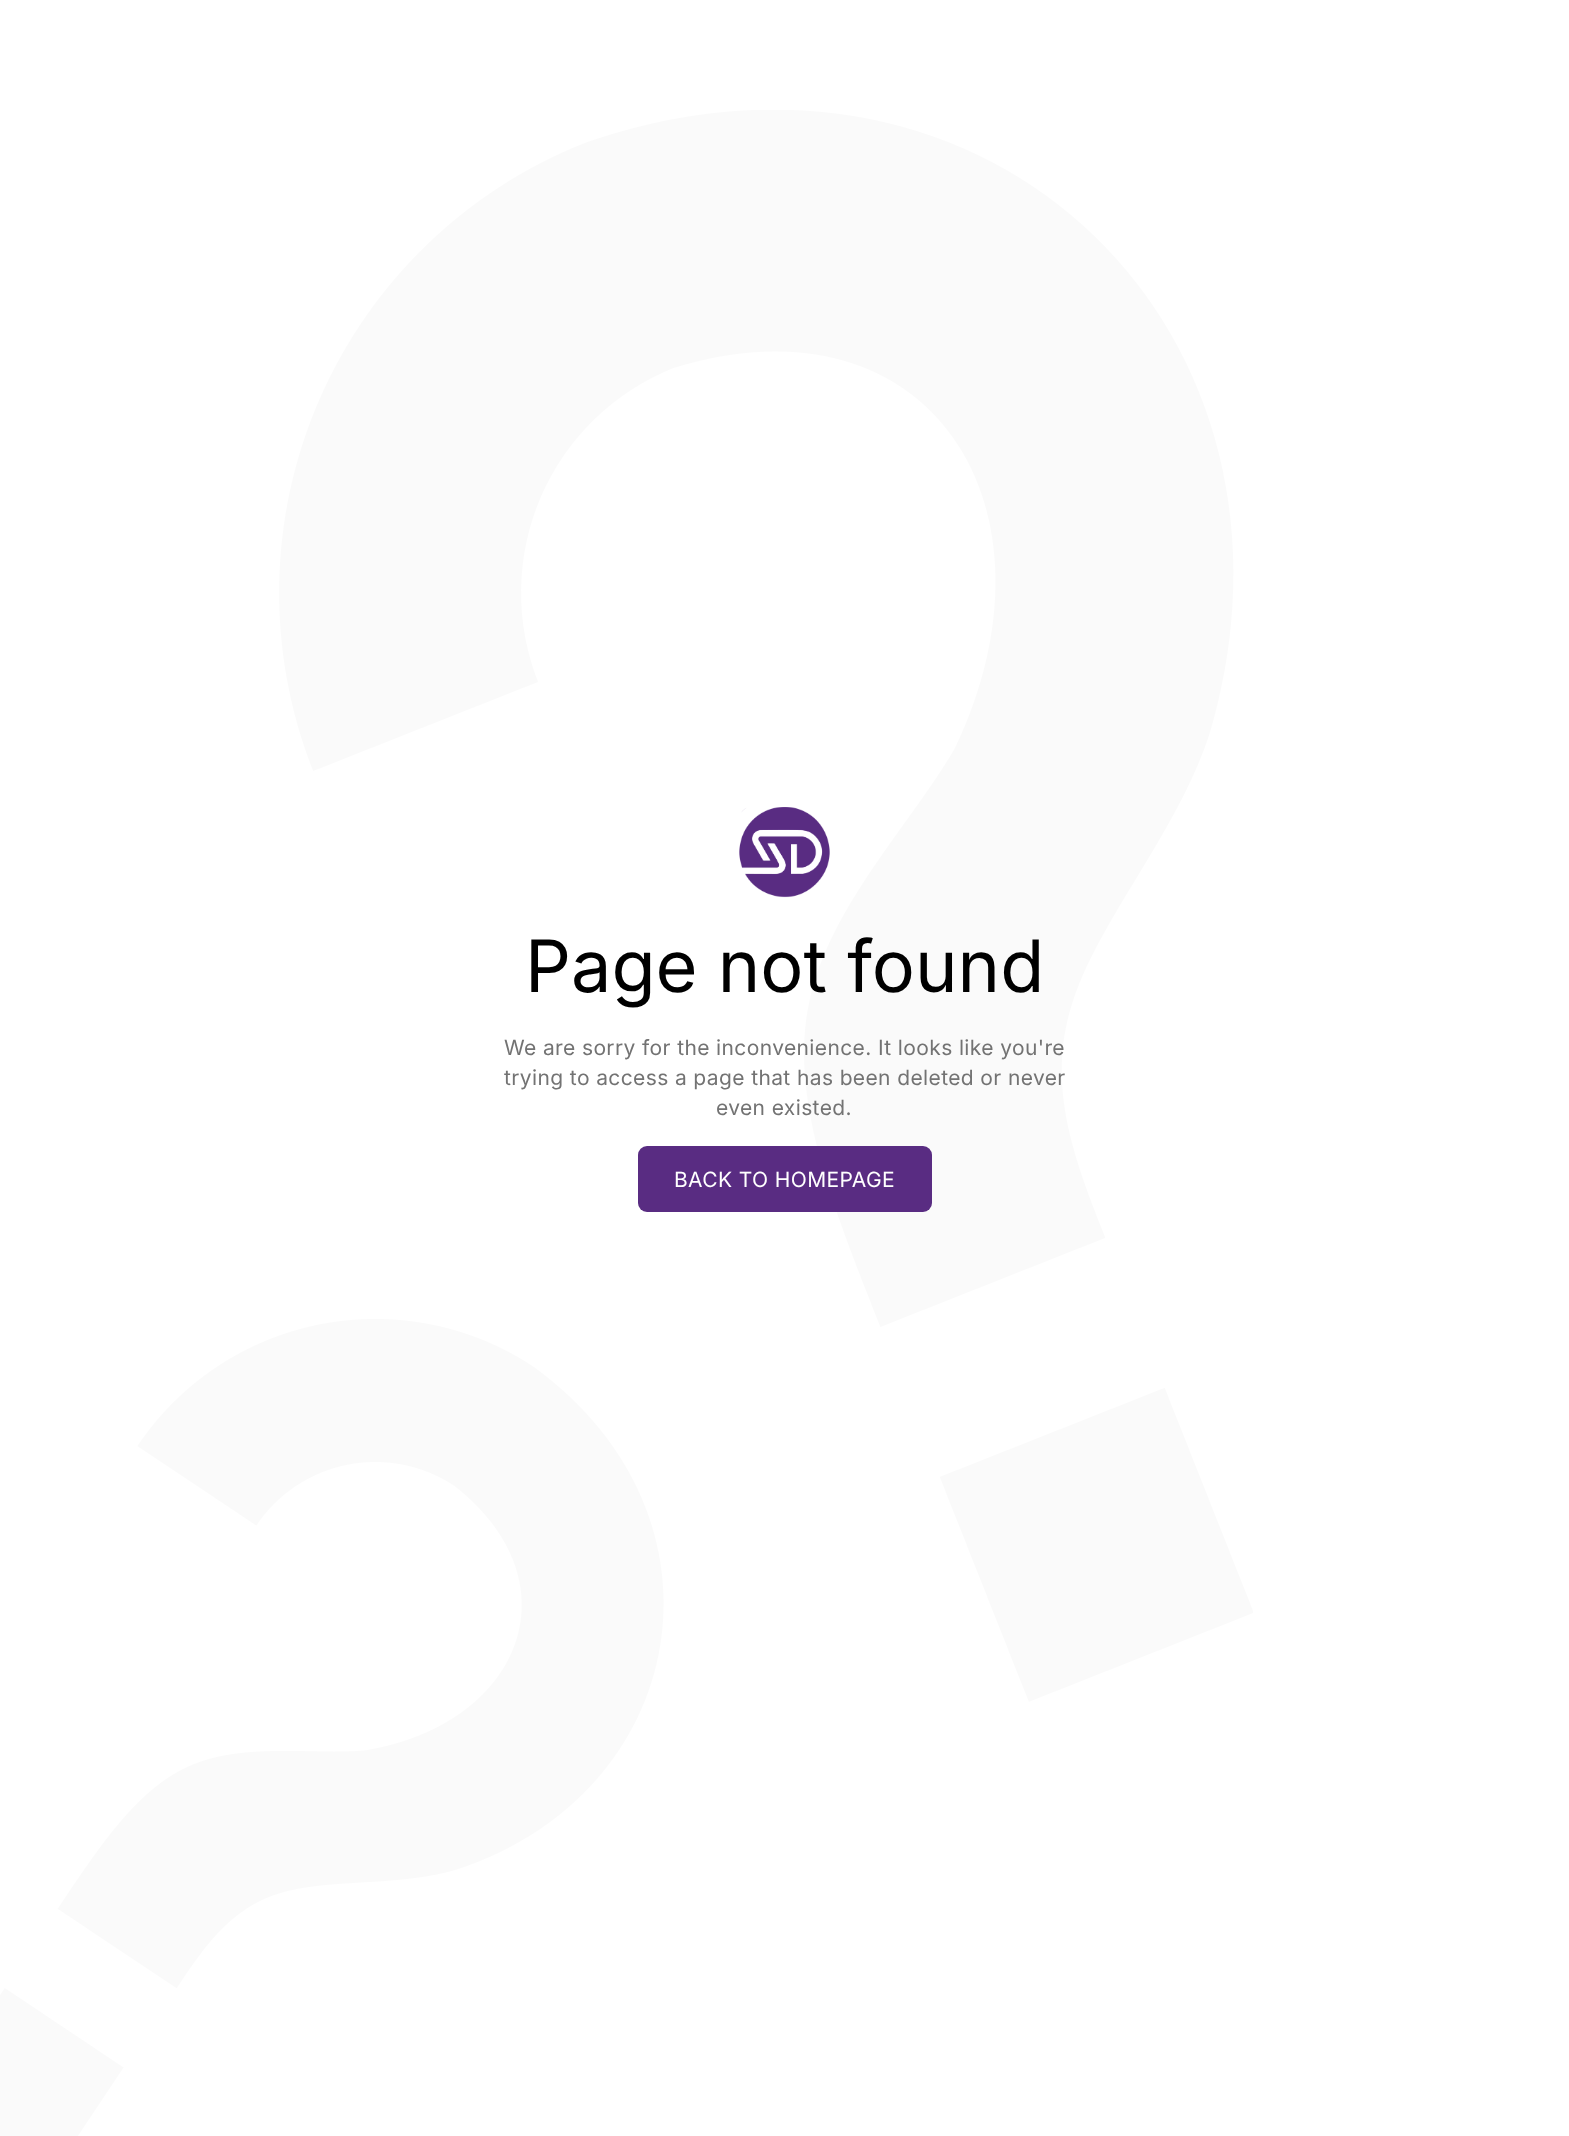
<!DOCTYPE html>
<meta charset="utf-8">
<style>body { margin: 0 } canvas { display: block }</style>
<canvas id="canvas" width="1569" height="2136"></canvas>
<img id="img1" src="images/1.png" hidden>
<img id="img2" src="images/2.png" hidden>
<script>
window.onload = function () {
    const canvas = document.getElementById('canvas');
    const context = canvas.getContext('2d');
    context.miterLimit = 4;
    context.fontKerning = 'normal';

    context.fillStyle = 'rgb(255, 255, 255)';
    context.fillRect(0, 0, 1569, 2136);
    context.drawImage(document.getElementById('img1'), 0, 110, 1253, 2026);
    context.drawImage(document.getElementById('img2'), 739, 807, 91, 91);
    context.fillStyle = 'rgb(89, 44, 130)';
    context.beginPath();
    context.roundRect(638, 1146, 294, 66, 9);
    context.fill();
    context.font = '72px Inter';
    context.fillStyle = 'rgb(0, 0, 0)';
    context.fillText('Page not found', 525, 992);
    context.letterSpacing = '0.38px';
    context.font = '21px Inter';
    context.fillStyle = 'rgb(115, 115, 115)';
    context.fillText('We are sorry for the inconvenience. It looks like you\'re', 504, 1055);
    context.fillText('trying to access a page that has been deleted or never', 504, 1085);
    context.fillText('even existed.', 716, 1115);
    context.fillStyle = 'rgb(255, 255, 255)';
    context.fillText('BACK TO HOMEPAGE', 674, 1187);
};
</script>
